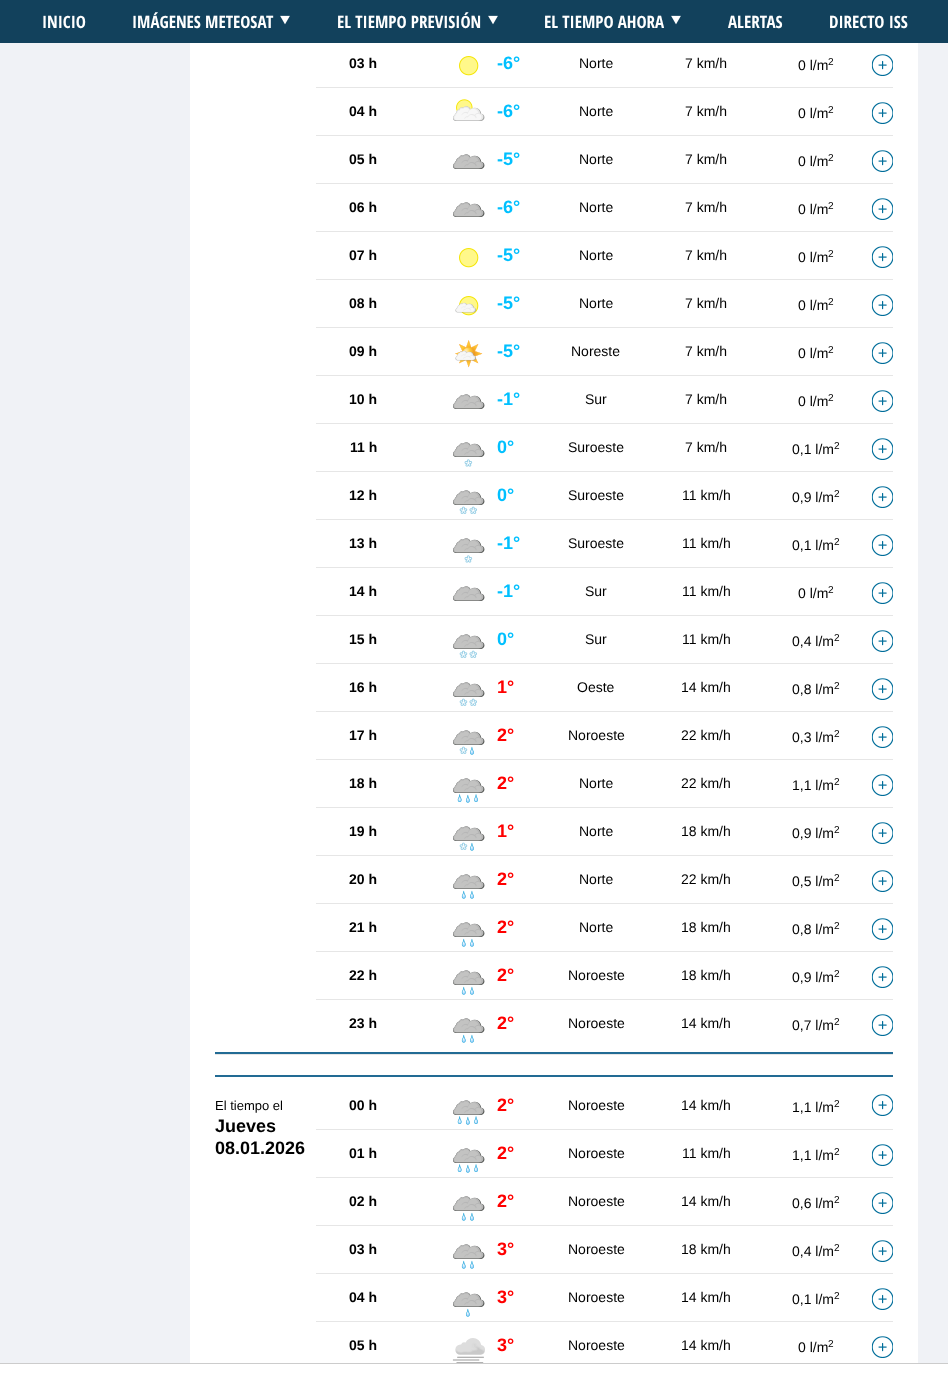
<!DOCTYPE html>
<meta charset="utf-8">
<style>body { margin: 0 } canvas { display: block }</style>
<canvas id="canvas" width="948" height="1374"></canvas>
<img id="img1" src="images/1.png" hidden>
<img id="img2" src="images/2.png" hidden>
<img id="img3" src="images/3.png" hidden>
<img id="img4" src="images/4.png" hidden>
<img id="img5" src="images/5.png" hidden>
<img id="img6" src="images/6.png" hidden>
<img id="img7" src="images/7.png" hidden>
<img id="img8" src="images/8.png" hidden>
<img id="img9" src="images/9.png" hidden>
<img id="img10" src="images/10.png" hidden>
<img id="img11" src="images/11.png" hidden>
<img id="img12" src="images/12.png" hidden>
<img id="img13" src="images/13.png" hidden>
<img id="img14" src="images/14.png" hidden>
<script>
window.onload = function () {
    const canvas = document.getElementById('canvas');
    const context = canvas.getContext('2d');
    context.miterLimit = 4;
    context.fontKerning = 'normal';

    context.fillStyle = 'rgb(240, 242, 246)';
    context.fillRect(0, 0, 948, 1374);
    context.fillStyle = 'rgb(18, 65, 92)';
    context.fillRect(0, 0, 948, 43);
    context.drawImage(document.getElementById('img1'), 280, 15, 10, 10);
    context.drawImage(document.getElementById('img1'), 488, 15, 10, 10);
    context.drawImage(document.getElementById('img1'), 671, 15, 10, 10);
    context.fillStyle = 'rgb(255, 255, 255)';
    context.fillRect(190, 43, 728, 1320);
    context.drawImage(document.getElementById('img2'), 459, 56, 20, 20);
    context.drawImage(document.getElementById('img3'), 871, 54, 22, 22);
    context.fillStyle = 'rgb(230, 230, 230)';
    context.fillRect(316, 87, 577, 1);
    context.drawImage(document.getElementById('img4'), 453, 99, 32, 22);
    context.drawImage(document.getElementById('img3'), 871, 102, 22, 22);
    context.fillRect(316, 135, 577, 1);
    context.drawImage(document.getElementById('img5'), 453, 154, 32, 15);
    context.drawImage(document.getElementById('img3'), 871, 150, 22, 22);
    context.fillRect(316, 183, 577, 1);
    context.drawImage(document.getElementById('img5'), 453, 202, 32, 15);
    context.drawImage(document.getElementById('img3'), 871, 198, 22, 22);
    context.fillRect(316, 231, 577, 1);
    context.drawImage(document.getElementById('img2'), 459, 248, 20, 20);
    context.drawImage(document.getElementById('img3'), 871, 246, 22, 22);
    context.fillRect(316, 279, 577, 1);
    context.drawImage(document.getElementById('img6'), 455, 296, 24, 20);
    context.drawImage(document.getElementById('img3'), 871, 294, 22, 22);
    context.fillRect(316, 327, 577, 1);
    context.drawImage(document.getElementById('img7'), 455, 340, 28, 28);
    context.drawImage(document.getElementById('img3'), 871, 342, 22, 22);
    context.fillRect(316, 375, 577, 1);
    context.drawImage(document.getElementById('img5'), 453, 394, 32, 15);
    context.drawImage(document.getElementById('img3'), 871, 390, 22, 22);
    context.fillRect(316, 423, 577, 1);
    context.drawImage(document.getElementById('img8'), 453, 442, 32, 25);
    context.drawImage(document.getElementById('img3'), 871, 438, 22, 22);
    context.fillRect(316, 471, 577, 1);
    context.drawImage(document.getElementById('img9'), 453, 490, 32, 24);
    context.drawImage(document.getElementById('img3'), 871, 486, 22, 22);
    context.fillRect(316, 519, 577, 1);
    context.drawImage(document.getElementById('img8'), 453, 538, 32, 25);
    context.drawImage(document.getElementById('img3'), 871, 534, 22, 22);
    context.fillRect(316, 567, 577, 1);
    context.drawImage(document.getElementById('img5'), 453, 586, 32, 15);
    context.drawImage(document.getElementById('img3'), 871, 582, 22, 22);
    context.fillRect(316, 615, 577, 1);
    context.drawImage(document.getElementById('img9'), 453, 634, 32, 24);
    context.drawImage(document.getElementById('img3'), 871, 630, 22, 22);
    context.fillRect(316, 663, 577, 1);
    context.drawImage(document.getElementById('img9'), 453, 682, 32, 24);
    context.drawImage(document.getElementById('img3'), 871, 678, 22, 22);
    context.fillRect(316, 711, 577, 1);
    context.drawImage(document.getElementById('img10'), 453, 730, 32, 25);
    context.drawImage(document.getElementById('img3'), 871, 726, 22, 22);
    context.fillRect(316, 759, 577, 1);
    context.drawImage(document.getElementById('img11'), 453, 778, 32, 25);
    context.drawImage(document.getElementById('img3'), 871, 774, 22, 22);
    context.fillRect(316, 807, 577, 1);
    context.drawImage(document.getElementById('img10'), 453, 826, 32, 25);
    context.drawImage(document.getElementById('img3'), 871, 822, 22, 22);
    context.fillRect(316, 855, 577, 1);
    context.drawImage(document.getElementById('img12'), 453, 874, 32, 25);
    context.drawImage(document.getElementById('img3'), 871, 870, 22, 22);
    context.fillRect(316, 903, 577, 1);
    context.drawImage(document.getElementById('img12'), 453, 922, 32, 25);
    context.drawImage(document.getElementById('img3'), 871, 918, 22, 22);
    context.fillRect(316, 951, 577, 1);
    context.drawImage(document.getElementById('img12'), 453, 970, 32, 25);
    context.drawImage(document.getElementById('img3'), 871, 966, 22, 22);
    context.fillRect(316, 999, 577, 1);
    context.drawImage(document.getElementById('img12'), 453, 1018, 32, 25);
    context.drawImage(document.getElementById('img3'), 871, 1014, 22, 22);
    context.fillStyle = 'rgb(34, 107, 148)';
    context.fillRect(215, 1052, 678, 2);
    context.fillStyle = 'rgb(230, 230, 230)';
    context.fillRect(215, 1054, 678, 1);
    context.fillStyle = 'rgb(34, 107, 148)';
    context.fillRect(215, 1075, 678, 2);
    context.drawImage(document.getElementById('img11'), 453, 1100, 32, 25);
    context.drawImage(document.getElementById('img3'), 871, 1094, 22, 22);
    context.fillStyle = 'rgb(230, 230, 230)';
    context.fillRect(316, 1129, 577, 1);
    context.drawImage(document.getElementById('img11'), 453, 1148, 32, 25);
    context.drawImage(document.getElementById('img3'), 871, 1144, 22, 22);
    context.fillRect(316, 1177, 577, 1);
    context.drawImage(document.getElementById('img12'), 453, 1196, 32, 25);
    context.drawImage(document.getElementById('img3'), 871, 1192, 22, 22);
    context.fillRect(316, 1225, 577, 1);
    context.drawImage(document.getElementById('img12'), 453, 1244, 32, 25);
    context.drawImage(document.getElementById('img3'), 871, 1240, 22, 22);
    context.fillRect(316, 1273, 577, 1);
    context.drawImage(document.getElementById('img13'), 453, 1292, 32, 25);
    context.drawImage(document.getElementById('img3'), 871, 1288, 22, 22);
    context.fillRect(316, 1321, 577, 1);
    context.drawImage(document.getElementById('img14'), 452, 1338, 33, 25);
    context.drawImage(document.getElementById('img3'), 871, 1336, 22, 22);
    context.fillStyle = 'rgb(255, 255, 255)';
    context.fillRect(0, 1364, 948, 10);
    context.fillStyle = 'rgb(204, 204, 204)';
    context.fillRect(0, 1363, 948, 1);
    context.font = 'bold 17px Open Sans Condensed';
    context.fillStyle = 'rgb(255, 255, 255)';
    context.fillText('INICIO', 42, 28);
    context.fillText('IMÁGENES METEOSAT', 132, 28);
    context.fillText('EL TIEMPO PREVISIÓN', 337, 28);
    context.fillText('EL TIEMPO AHORA', 544, 28);
    context.fillText('ALERTAS', 728, 28);
    context.fillText('DIRECTO ISS', 829, 28);
    context.font = 'bold 14px Liberation Sans';
    context.fillStyle = 'rgb(0, 0, 0)';
    context.fillText('03 h', 349, 68);
    context.font = 'bold 18px Liberation Sans';
    context.fillStyle = 'rgb(0, 192, 255)';
    context.fillText('-6°', 497, 69);
    context.font = '14px Liberation Sans';
    context.fillStyle = 'rgb(0, 0, 0)';
    context.fillText('Norte', 579, 68);
    context.fillText('7 km/h', 685, 68);
    context.fillText('0 l/m', 798, 70);
    context.font = '10px Liberation Sans';
    context.fillText('2', 828, 65);
    context.font = 'bold 14px Liberation Sans';
    context.fillText('04 h', 349, 116);
    context.font = 'bold 18px Liberation Sans';
    context.fillStyle = 'rgb(0, 192, 255)';
    context.fillText('-6°', 497, 117);
    context.font = '14px Liberation Sans';
    context.fillStyle = 'rgb(0, 0, 0)';
    context.fillText('Norte', 579, 116);
    context.fillText('7 km/h', 685, 116);
    context.fillText('0 l/m', 798, 118);
    context.font = '10px Liberation Sans';
    context.fillText('2', 828, 113);
    context.font = 'bold 14px Liberation Sans';
    context.fillText('05 h', 349, 164);
    context.font = 'bold 18px Liberation Sans';
    context.fillStyle = 'rgb(0, 192, 255)';
    context.fillText('-5°', 497, 165);
    context.font = '14px Liberation Sans';
    context.fillStyle = 'rgb(0, 0, 0)';
    context.fillText('Norte', 579, 164);
    context.fillText('7 km/h', 685, 164);
    context.fillText('0 l/m', 798, 166);
    context.font = '10px Liberation Sans';
    context.fillText('2', 828, 161);
    context.font = 'bold 14px Liberation Sans';
    context.fillText('06 h', 349, 212);
    context.font = 'bold 18px Liberation Sans';
    context.fillStyle = 'rgb(0, 192, 255)';
    context.fillText('-6°', 497, 213);
    context.font = '14px Liberation Sans';
    context.fillStyle = 'rgb(0, 0, 0)';
    context.fillText('Norte', 579, 212);
    context.fillText('7 km/h', 685, 212);
    context.fillText('0 l/m', 798, 214);
    context.font = '10px Liberation Sans';
    context.fillText('2', 828, 209);
    context.font = 'bold 14px Liberation Sans';
    context.fillText('07 h', 349, 260);
    context.font = 'bold 18px Liberation Sans';
    context.fillStyle = 'rgb(0, 192, 255)';
    context.fillText('-5°', 497, 261);
    context.font = '14px Liberation Sans';
    context.fillStyle = 'rgb(0, 0, 0)';
    context.fillText('Norte', 579, 260);
    context.fillText('7 km/h', 685, 260);
    context.fillText('0 l/m', 798, 262);
    context.font = '10px Liberation Sans';
    context.fillText('2', 828, 257);
    context.font = 'bold 14px Liberation Sans';
    context.fillText('08 h', 349, 308);
    context.font = 'bold 18px Liberation Sans';
    context.fillStyle = 'rgb(0, 192, 255)';
    context.fillText('-5°', 497, 309);
    context.font = '14px Liberation Sans';
    context.fillStyle = 'rgb(0, 0, 0)';
    context.fillText('Norte', 579, 308);
    context.fillText('7 km/h', 685, 308);
    context.fillText('0 l/m', 798, 310);
    context.font = '10px Liberation Sans';
    context.fillText('2', 828, 305);
    context.font = 'bold 14px Liberation Sans';
    context.fillText('09 h', 349, 356);
    context.font = 'bold 18px Liberation Sans';
    context.fillStyle = 'rgb(0, 192, 255)';
    context.fillText('-5°', 497, 357);
    context.font = '14px Liberation Sans';
    context.fillStyle = 'rgb(0, 0, 0)';
    context.fillText('Noreste', 571, 356);
    context.fillText('7 km/h', 685, 356);
    context.fillText('0 l/m', 798, 358);
    context.font = '10px Liberation Sans';
    context.fillText('2', 828, 353);
    context.font = 'bold 14px Liberation Sans';
    context.fillText('10 h', 349, 404);
    context.font = 'bold 18px Liberation Sans';
    context.fillStyle = 'rgb(0, 192, 255)';
    context.fillText('-1°', 497, 405);
    context.font = '14px Liberation Sans';
    context.fillStyle = 'rgb(0, 0, 0)';
    context.fillText('Sur', 585, 404);
    context.fillText('7 km/h', 685, 404);
    context.fillText('0 l/m', 798, 406);
    context.font = '10px Liberation Sans';
    context.fillText('2', 828, 401);
    context.font = 'bold 14px Liberation Sans';
    context.fillText('11 h', 350, 452);
    context.font = 'bold 18px Liberation Sans';
    context.fillStyle = 'rgb(0, 192, 255)';
    context.fillText('0°', 497, 453);
    context.font = '14px Liberation Sans';
    context.fillStyle = 'rgb(0, 0, 0)';
    context.fillText('Suroeste', 568, 452);
    context.fillText('7 km/h', 685, 452);
    context.fillText('0,1 l/m', 792, 454);
    context.font = '10px Liberation Sans';
    context.fillText('2', 834, 449);
    context.font = 'bold 14px Liberation Sans';
    context.fillText('12 h', 349, 500);
    context.font = 'bold 18px Liberation Sans';
    context.fillStyle = 'rgb(0, 192, 255)';
    context.fillText('0°', 497, 501);
    context.font = '14px Liberation Sans';
    context.fillStyle = 'rgb(0, 0, 0)';
    context.fillText('Suroeste', 568, 500);
    context.fillText('11 km/h', 682, 500);
    context.fillText('0,9 l/m', 792, 502);
    context.font = '10px Liberation Sans';
    context.fillText('2', 834, 497);
    context.font = 'bold 14px Liberation Sans';
    context.fillText('13 h', 349, 548);
    context.font = 'bold 18px Liberation Sans';
    context.fillStyle = 'rgb(0, 192, 255)';
    context.fillText('-1°', 497, 549);
    context.font = '14px Liberation Sans';
    context.fillStyle = 'rgb(0, 0, 0)';
    context.fillText('Suroeste', 568, 548);
    context.fillText('11 km/h', 682, 548);
    context.fillText('0,1 l/m', 792, 550);
    context.font = '10px Liberation Sans';
    context.fillText('2', 834, 545);
    context.font = 'bold 14px Liberation Sans';
    context.fillText('14 h', 349, 596);
    context.font = 'bold 18px Liberation Sans';
    context.fillStyle = 'rgb(0, 192, 255)';
    context.fillText('-1°', 497, 597);
    context.font = '14px Liberation Sans';
    context.fillStyle = 'rgb(0, 0, 0)';
    context.fillText('Sur', 585, 596);
    context.fillText('11 km/h', 682, 596);
    context.fillText('0 l/m', 798, 598);
    context.font = '10px Liberation Sans';
    context.fillText('2', 828, 593);
    context.font = 'bold 14px Liberation Sans';
    context.fillText('15 h', 349, 644);
    context.font = 'bold 18px Liberation Sans';
    context.fillStyle = 'rgb(0, 192, 255)';
    context.fillText('0°', 497, 645);
    context.font = '14px Liberation Sans';
    context.fillStyle = 'rgb(0, 0, 0)';
    context.fillText('Sur', 585, 644);
    context.fillText('11 km/h', 682, 644);
    context.fillText('0,4 l/m', 792, 646);
    context.font = '10px Liberation Sans';
    context.fillText('2', 834, 641);
    context.font = 'bold 14px Liberation Sans';
    context.fillText('16 h', 349, 692);
    context.font = 'bold 18px Liberation Sans';
    context.fillStyle = 'rgb(255, 0, 0)';
    context.fillText('1°', 497, 693);
    context.font = '14px Liberation Sans';
    context.fillStyle = 'rgb(0, 0, 0)';
    context.fillText('Oeste', 577, 692);
    context.fillText('14 km/h', 681, 692);
    context.fillText('0,8 l/m', 792, 694);
    context.font = '10px Liberation Sans';
    context.fillText('2', 834, 689);
    context.font = 'bold 14px Liberation Sans';
    context.fillText('17 h', 349, 740);
    context.font = 'bold 18px Liberation Sans';
    context.fillStyle = 'rgb(255, 0, 0)';
    context.fillText('2°', 497, 741);
    context.font = '14px Liberation Sans';
    context.fillStyle = 'rgb(0, 0, 0)';
    context.fillText('Noroeste', 568, 740);
    context.fillText('22 km/h', 681, 740);
    context.fillText('0,3 l/m', 792, 742);
    context.font = '10px Liberation Sans';
    context.fillText('2', 834, 737);
    context.font = 'bold 14px Liberation Sans';
    context.fillText('18 h', 349, 788);
    context.font = 'bold 18px Liberation Sans';
    context.fillStyle = 'rgb(255, 0, 0)';
    context.fillText('2°', 497, 789);
    context.font = '14px Liberation Sans';
    context.fillStyle = 'rgb(0, 0, 0)';
    context.fillText('Norte', 579, 788);
    context.fillText('22 km/h', 681, 788);
    context.fillText('1,1 l/m', 792, 790);
    context.font = '10px Liberation Sans';
    context.fillText('2', 834, 785);
    context.font = 'bold 14px Liberation Sans';
    context.fillText('19 h', 349, 836);
    context.font = 'bold 18px Liberation Sans';
    context.fillStyle = 'rgb(255, 0, 0)';
    context.fillText('1°', 497, 837);
    context.font = '14px Liberation Sans';
    context.fillStyle = 'rgb(0, 0, 0)';
    context.fillText('Norte', 579, 836);
    context.fillText('18 km/h', 681, 836);
    context.fillText('0,9 l/m', 792, 838);
    context.font = '10px Liberation Sans';
    context.fillText('2', 834, 833);
    context.font = 'bold 14px Liberation Sans';
    context.fillText('20 h', 349, 884);
    context.font = 'bold 18px Liberation Sans';
    context.fillStyle = 'rgb(255, 0, 0)';
    context.fillText('2°', 497, 885);
    context.font = '14px Liberation Sans';
    context.fillStyle = 'rgb(0, 0, 0)';
    context.fillText('Norte', 579, 884);
    context.fillText('22 km/h', 681, 884);
    context.fillText('0,5 l/m', 792, 886);
    context.font = '10px Liberation Sans';
    context.fillText('2', 834, 881);
    context.font = 'bold 14px Liberation Sans';
    context.fillText('21 h', 349, 932);
    context.font = 'bold 18px Liberation Sans';
    context.fillStyle = 'rgb(255, 0, 0)';
    context.fillText('2°', 497, 933);
    context.font = '14px Liberation Sans';
    context.fillStyle = 'rgb(0, 0, 0)';
    context.fillText('Norte', 579, 932);
    context.fillText('18 km/h', 681, 932);
    context.fillText('0,8 l/m', 792, 934);
    context.font = '10px Liberation Sans';
    context.fillText('2', 834, 929);
    context.font = 'bold 14px Liberation Sans';
    context.fillText('22 h', 349, 980);
    context.font = 'bold 18px Liberation Sans';
    context.fillStyle = 'rgb(255, 0, 0)';
    context.fillText('2°', 497, 981);
    context.font = '14px Liberation Sans';
    context.fillStyle = 'rgb(0, 0, 0)';
    context.fillText('Noroeste', 568, 980);
    context.fillText('18 km/h', 681, 980);
    context.fillText('0,9 l/m', 792, 982);
    context.font = '10px Liberation Sans';
    context.fillText('2', 834, 977);
    context.font = 'bold 14px Liberation Sans';
    context.fillText('23 h', 349, 1028);
    context.font = 'bold 18px Liberation Sans';
    context.fillStyle = 'rgb(255, 0, 0)';
    context.fillText('2°', 497, 1029);
    context.font = '14px Liberation Sans';
    context.fillStyle = 'rgb(0, 0, 0)';
    context.fillText('Noroeste', 568, 1028);
    context.fillText('14 km/h', 681, 1028);
    context.fillText('0,7 l/m', 792, 1030);
    context.font = '10px Liberation Sans';
    context.fillText('2', 834, 1025);
    context.font = '13px Liberation Sans';
    context.fillText('El tiempo el', 215, 1110);
    context.font = 'bold 18px Liberation Sans';
    context.fillText('Jueves', 215, 1132);
    context.fillText('08.01.2026', 215, 1154);
    context.font = 'bold 14px Liberation Sans';
    context.fillText('00 h', 349, 1110);
    context.font = 'bold 18px Liberation Sans';
    context.fillStyle = 'rgb(255, 0, 0)';
    context.fillText('2°', 497, 1111);
    context.font = '14px Liberation Sans';
    context.fillStyle = 'rgb(0, 0, 0)';
    context.fillText('Noroeste', 568, 1110);
    context.fillText('14 km/h', 681, 1110);
    context.fillText('1,1 l/m', 792, 1112);
    context.font = '10px Liberation Sans';
    context.fillText('2', 834, 1107);
    context.font = 'bold 14px Liberation Sans';
    context.fillText('01 h', 349, 1158);
    context.font = 'bold 18px Liberation Sans';
    context.fillStyle = 'rgb(255, 0, 0)';
    context.fillText('2°', 497, 1159);
    context.font = '14px Liberation Sans';
    context.fillStyle = 'rgb(0, 0, 0)';
    context.fillText('Noroeste', 568, 1158);
    context.fillText('11 km/h', 682, 1158);
    context.fillText('1,1 l/m', 792, 1160);
    context.font = '10px Liberation Sans';
    context.fillText('2', 834, 1155);
    context.font = 'bold 14px Liberation Sans';
    context.fillText('02 h', 349, 1206);
    context.font = 'bold 18px Liberation Sans';
    context.fillStyle = 'rgb(255, 0, 0)';
    context.fillText('2°', 497, 1207);
    context.font = '14px Liberation Sans';
    context.fillStyle = 'rgb(0, 0, 0)';
    context.fillText('Noroeste', 568, 1206);
    context.fillText('14 km/h', 681, 1206);
    context.fillText('0,6 l/m', 792, 1208);
    context.font = '10px Liberation Sans';
    context.fillText('2', 834, 1203);
    context.font = 'bold 14px Liberation Sans';
    context.fillText('03 h', 349, 1254);
    context.font = 'bold 18px Liberation Sans';
    context.fillStyle = 'rgb(255, 0, 0)';
    context.fillText('3°', 497, 1255);
    context.font = '14px Liberation Sans';
    context.fillStyle = 'rgb(0, 0, 0)';
    context.fillText('Noroeste', 568, 1254);
    context.fillText('18 km/h', 681, 1254);
    context.fillText('0,4 l/m', 792, 1256);
    context.font = '10px Liberation Sans';
    context.fillText('2', 834, 1251);
    context.font = 'bold 14px Liberation Sans';
    context.fillText('04 h', 349, 1302);
    context.font = 'bold 18px Liberation Sans';
    context.fillStyle = 'rgb(255, 0, 0)';
    context.fillText('3°', 497, 1303);
    context.font = '14px Liberation Sans';
    context.fillStyle = 'rgb(0, 0, 0)';
    context.fillText('Noroeste', 568, 1302);
    context.fillText('14 km/h', 681, 1302);
    context.fillText('0,1 l/m', 792, 1304);
    context.font = '10px Liberation Sans';
    context.fillText('2', 834, 1299);
    context.font = 'bold 14px Liberation Sans';
    context.fillText('05 h', 349, 1350);
    context.font = 'bold 18px Liberation Sans';
    context.fillStyle = 'rgb(255, 0, 0)';
    context.fillText('3°', 497, 1351);
    context.font = '14px Liberation Sans';
    context.fillStyle = 'rgb(0, 0, 0)';
    context.fillText('Noroeste', 568, 1350);
    context.fillText('14 km/h', 681, 1350);
    context.fillText('0 l/m', 798, 1352);
    context.font = '10px Liberation Sans';
    context.fillText('2', 828, 1347);
};
</script>
